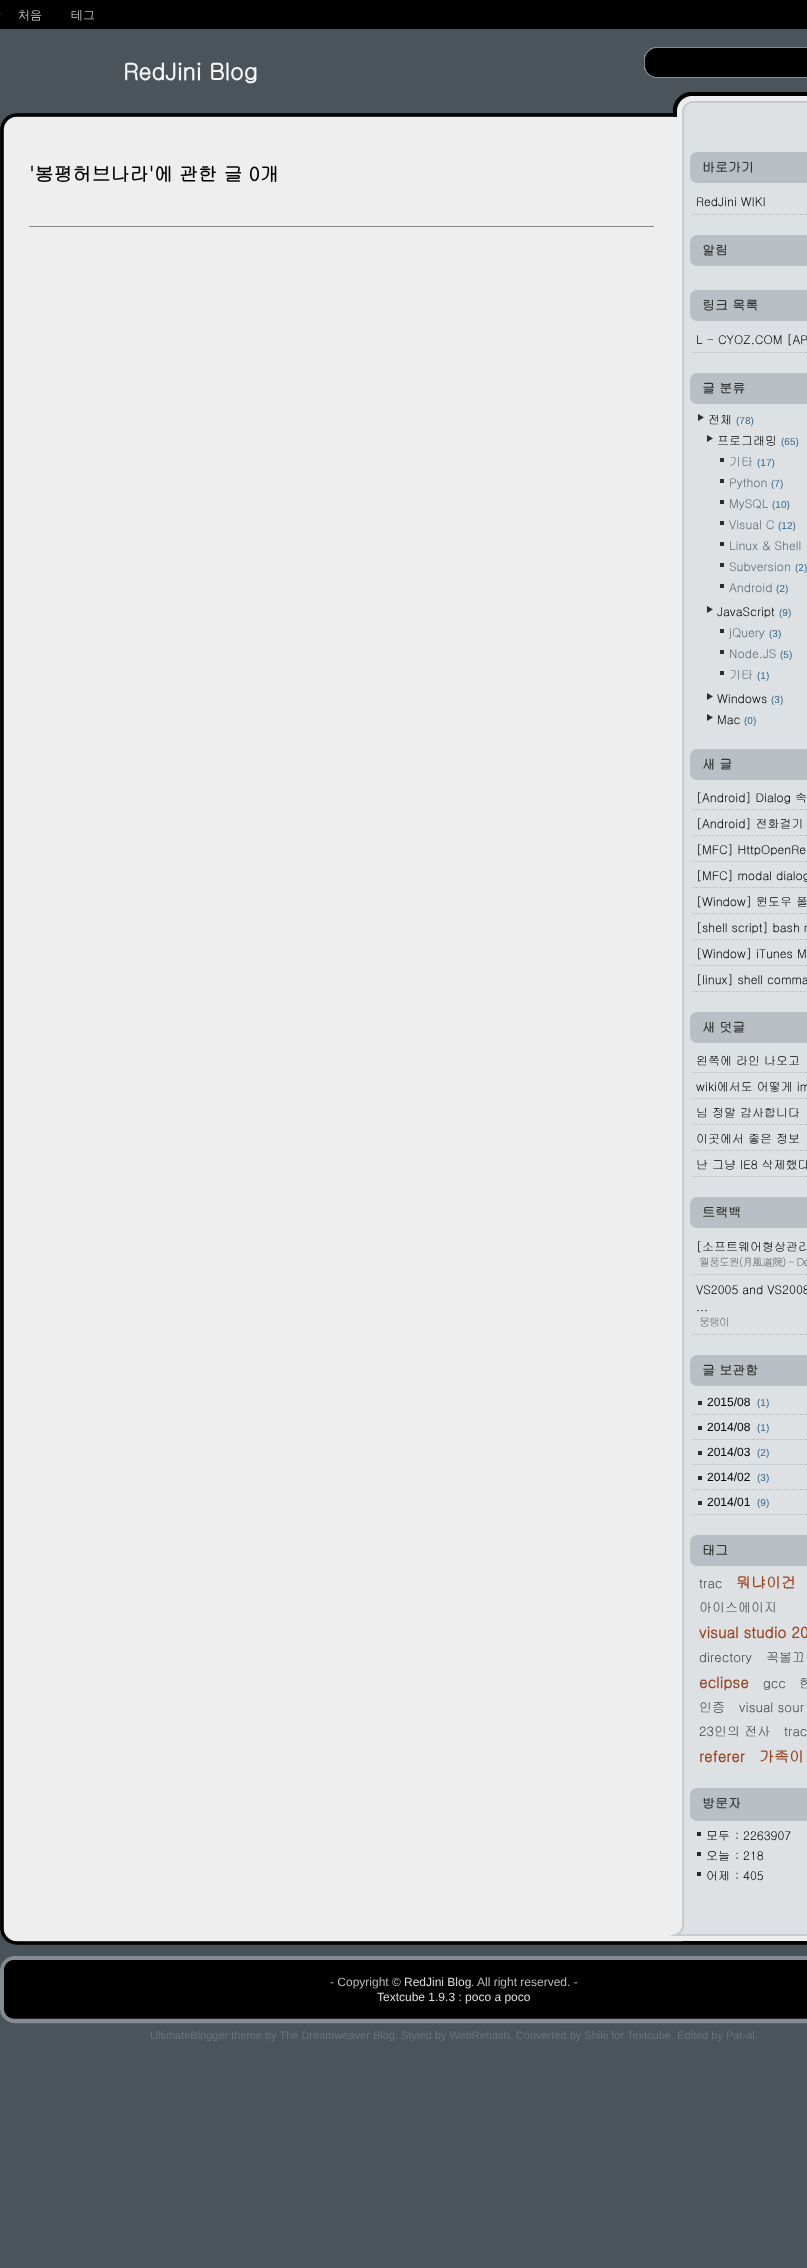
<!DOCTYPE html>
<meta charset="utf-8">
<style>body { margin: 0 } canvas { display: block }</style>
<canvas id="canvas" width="807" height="2268"></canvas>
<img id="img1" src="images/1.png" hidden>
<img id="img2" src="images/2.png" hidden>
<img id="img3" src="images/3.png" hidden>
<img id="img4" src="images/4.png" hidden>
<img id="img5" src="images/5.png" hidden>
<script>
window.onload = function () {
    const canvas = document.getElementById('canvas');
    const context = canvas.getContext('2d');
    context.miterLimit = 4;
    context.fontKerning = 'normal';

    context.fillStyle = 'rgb(75, 84, 90)';
    context.fillRect(0, 0, 807, 2268);
    context.fillStyle = 'rgb(0, 0, 0)';
    context.fillRect(0, 0, 807, 29);
    context.fillStyle = 'rgb(50, 50, 50)';
    context.fillRect(0, 13, 1, 1);
    context.drawImage(document.getElementById('img1'), 0, 92, 807, 37);
    context.drawImage(document.getElementById('img2'), 644, 47, 163, 31);
    context.drawImage(document.getElementById('img3'), 0, 129, 807, 1794);
    context.fillStyle = 'rgb(136, 136, 136)';
    context.fillRect(29, 226, 625, 1);
    context.fillStyle = 'rgb(186, 191, 197)';
    context.beginPath();
    context.roundRect(690, 152, 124, 31, 7);
    context.fill();
    context.beginPath();
    context.moveTo(692, 214.5);
    context.lineTo(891, 214.5);
    context.strokeStyle = 'rgb(181, 186, 191)';
    context.setLineDash([1, 1]);
    context.stroke();
    context.beginPath();
    context.roundRect(690, 235, 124, 31, 7);
    context.fill();
    context.beginPath();
    context.roundRect(690, 290, 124, 31, 7);
    context.fill();
    context.beginPath();
    context.moveTo(692, 352.5);
    context.lineTo(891, 352.5);
    context.stroke();
    context.beginPath();
    context.roundRect(690, 373, 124, 31, 7);
    context.fill();
    context.drawImage(document.getElementById('img4'), 698, 414, 6, 7);
    context.drawImage(document.getElementById('img4'), 707, 435, 6, 7);
    context.fillStyle = 'rgb(45, 45, 45)';
    context.fillRect(720, 458, 4, 4);
    context.fillRect(720, 479, 4, 4);
    context.fillRect(720, 500, 4, 4);
    context.fillRect(720, 521, 4, 4);
    context.fillRect(720, 542, 4, 4);
    context.fillRect(720, 563, 4, 4);
    context.fillRect(720, 584, 4, 4);
    context.drawImage(document.getElementById('img4'), 707, 606, 6, 7);
    context.fillRect(720, 629, 4, 4);
    context.fillRect(720, 650, 4, 4);
    context.fillRect(720, 671, 4, 4);
    context.drawImage(document.getElementById('img4'), 707, 693, 6, 7);
    context.drawImage(document.getElementById('img4'), 707, 714, 6, 7);
    context.fillStyle = 'rgb(186, 191, 197)';
    context.beginPath();
    context.roundRect(690, 749, 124, 31, 7);
    context.fill();
    context.beginPath();
    context.moveTo(692, 809.5);
    context.lineTo(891, 809.5);
    context.stroke();
    context.beginPath();
    context.moveTo(692, 835.5);
    context.lineTo(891, 835.5);
    context.stroke();
    context.beginPath();
    context.moveTo(692, 861.5);
    context.lineTo(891, 861.5);
    context.stroke();
    context.beginPath();
    context.moveTo(692, 887.5);
    context.lineTo(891, 887.5);
    context.stroke();
    context.beginPath();
    context.moveTo(692, 913.5);
    context.lineTo(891, 913.5);
    context.stroke();
    context.beginPath();
    context.moveTo(692, 939.5);
    context.lineTo(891, 939.5);
    context.stroke();
    context.beginPath();
    context.moveTo(692, 965.5);
    context.lineTo(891, 965.5);
    context.stroke();
    context.beginPath();
    context.moveTo(692, 991.5);
    context.lineTo(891, 991.5);
    context.stroke();
    context.beginPath();
    context.roundRect(690, 1012, 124, 31, 7);
    context.fill();
    context.beginPath();
    context.moveTo(692, 1072.5);
    context.lineTo(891, 1072.5);
    context.stroke();
    context.beginPath();
    context.moveTo(692, 1098.5);
    context.lineTo(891, 1098.5);
    context.stroke();
    context.beginPath();
    context.moveTo(692, 1124.5);
    context.lineTo(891, 1124.5);
    context.stroke();
    context.beginPath();
    context.moveTo(692, 1150.5);
    context.lineTo(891, 1150.5);
    context.stroke();
    context.beginPath();
    context.moveTo(692, 1176.5);
    context.lineTo(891, 1176.5);
    context.stroke();
    context.beginPath();
    context.roundRect(690, 1197, 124, 31, 7);
    context.fill();
    context.beginPath();
    context.moveTo(692, 1274.5);
    context.lineTo(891, 1274.5);
    context.stroke();
    context.beginPath();
    context.moveTo(692, 1334.5);
    context.lineTo(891, 1334.5);
    context.stroke();
    context.beginPath();
    context.roundRect(690, 1355, 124, 31, 7);
    context.fill();
    context.fillStyle = 'rgb(45, 45, 45)';
    context.fillRect(698, 1401, 4, 4);
    context.beginPath();
    context.moveTo(692, 1414.5);
    context.lineTo(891, 1414.5);
    context.stroke();
    context.fillRect(698, 1426, 4, 4);
    context.beginPath();
    context.moveTo(692, 1439.5);
    context.lineTo(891, 1439.5);
    context.stroke();
    context.fillRect(698, 1451, 4, 4);
    context.beginPath();
    context.moveTo(692, 1464.5);
    context.lineTo(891, 1464.5);
    context.stroke();
    context.fillRect(698, 1476, 4, 4);
    context.beginPath();
    context.moveTo(692, 1489.5);
    context.lineTo(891, 1489.5);
    context.stroke();
    context.fillRect(698, 1501, 4, 4);
    context.beginPath();
    context.moveTo(692, 1514.5);
    context.lineTo(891, 1514.5);
    context.stroke();
    context.fillStyle = 'rgb(186, 191, 197)';
    context.beginPath();
    context.roundRect(690, 1535, 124, 31, 7);
    context.fill();
    context.beginPath();
    context.roundRect(690, 1788, 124, 33, 7);
    context.fill();
    context.fillStyle = 'rgb(45, 45, 45)';
    context.fillRect(697, 1832, 4, 4);
    context.fillRect(697, 1852, 4, 4);
    context.fillRect(697, 1872, 4, 4);
    context.drawImage(document.getElementById('img5'), 0, 1923, 807, 101);
    context.font = '500 12px WenQuanYi Zen Hei';
    context.fillStyle = 'rgb(187, 187, 187)';
    context.fillText('처음', 18, 19);
    context.fillText('테그', 71, 19);
    context.font = 'bold 23px Gulim';
    context.fillStyle = 'rgb(246, 246, 246)';
    context.fillText('RedJini Blog', 123, 80);
    context.font = 'bold 19px Gulim';
    context.fillStyle = 'rgb(0, 0, 0)';
    context.fillText('\'봉평허브나라\'에 관한 글 0개', 29, 181);
    context.font = 'bold 13px Gulim';
    context.fillStyle = 'rgb(51, 51, 51)';
    context.fillText('바로가기', 702, 172);
    context.font = '12px Gulim';
    context.fillStyle = 'rgb(0, 0, 0)';
    context.fillText('RedJini WIKI', 696, 206);
    context.font = 'bold 13px Gulim';
    context.fillStyle = 'rgb(51, 51, 51)';
    context.fillText('알림', 702, 255);
    context.fillText('링크 목록', 702, 310);
    context.font = '12px Gulim';
    context.fillStyle = 'rgb(0, 0, 0)';
    context.fillText('L - CYOZ.COM [AP', 696, 344);
    context.font = 'bold 13px Gulim';
    context.fillStyle = 'rgb(51, 51, 51)';
    context.fillText('글 분류', 702, 393);
    context.font = '12px Gulim';
    context.fillStyle = 'rgb(0, 0, 0)';
    context.fillText('전체', 708, 424);
    context.font = '10px Liberation Sans';
    context.fillStyle = 'rgb(51, 102, 136)';
    context.fillText('(78)', 736, 424);
    context.font = '12px Gulim';
    context.fillStyle = 'rgb(0, 0, 0)';
    context.fillText('프로그래밍', 717, 445);
    context.font = '10px Liberation Sans';
    context.fillStyle = 'rgb(51, 102, 136)';
    context.fillText('(65)', 781, 445);
    context.font = '12px Gulim';
    context.fillStyle = 'rgb(98, 106, 115)';
    context.fillText('기타', 729, 466);
    context.font = '10px Liberation Sans';
    context.fillStyle = 'rgb(51, 102, 136)';
    context.fillText('(17)', 757, 466);
    context.font = '12px Gulim';
    context.fillStyle = 'rgb(98, 106, 115)';
    context.fillText('Python', 729, 487);
    context.font = '10px Liberation Sans';
    context.fillStyle = 'rgb(51, 102, 136)';
    context.fillText('(7)', 771, 487);
    context.font = '12px Gulim';
    context.fillStyle = 'rgb(98, 106, 115)';
    context.fillText('MySQL', 729, 508);
    context.font = '10px Liberation Sans';
    context.fillStyle = 'rgb(51, 102, 136)';
    context.fillText('(10)', 772, 508);
    context.font = '12px Gulim';
    context.fillStyle = 'rgb(98, 106, 115)';
    context.fillText('Visual C', 729, 529);
    context.font = '10px Liberation Sans';
    context.fillStyle = 'rgb(51, 102, 136)';
    context.fillText('(12)', 778, 529);
    context.font = '12px Gulim';
    context.fillStyle = 'rgb(98, 106, 115)';
    context.fillText('Linux & Shell', 729, 550);
    context.fillText('Subversion', 729, 571);
    context.font = '10px Liberation Sans';
    context.fillStyle = 'rgb(51, 102, 136)';
    context.fillText('(2)', 795, 571);
    context.font = '12px Gulim';
    context.fillStyle = 'rgb(98, 106, 115)';
    context.fillText('Android', 729, 592);
    context.font = '10px Liberation Sans';
    context.fillStyle = 'rgb(51, 102, 136)';
    context.fillText('(2)', 776, 592);
    context.font = '12px Gulim';
    context.fillStyle = 'rgb(0, 0, 0)';
    context.fillText('JavaScript', 717, 616);
    context.font = '10px Liberation Sans';
    context.fillStyle = 'rgb(51, 102, 136)';
    context.fillText('(9)', 779, 616);
    context.font = '12px Gulim';
    context.fillStyle = 'rgb(98, 106, 115)';
    context.fillText('jQuery', 729, 637);
    context.font = '10px Liberation Sans';
    context.fillStyle = 'rgb(51, 102, 136)';
    context.fillText('(3)', 769, 637);
    context.font = '12px Gulim';
    context.fillStyle = 'rgb(98, 106, 115)';
    context.fillText('Node.JS', 729, 658);
    context.font = '10px Liberation Sans';
    context.fillStyle = 'rgb(51, 102, 136)';
    context.fillText('(5)', 780, 658);
    context.font = '12px Gulim';
    context.fillStyle = 'rgb(98, 106, 115)';
    context.fillText('기타', 729, 679);
    context.font = '10px Liberation Sans';
    context.fillStyle = 'rgb(51, 102, 136)';
    context.fillText('(1)', 757, 679);
    context.font = '12px Gulim';
    context.fillStyle = 'rgb(0, 0, 0)';
    context.fillText('Windows', 717, 703);
    context.font = '10px Liberation Sans';
    context.fillStyle = 'rgb(51, 102, 136)';
    context.fillText('(3)', 771, 703);
    context.font = '12px Gulim';
    context.fillStyle = 'rgb(0, 0, 0)';
    context.fillText('Mac', 717, 724);
    context.font = '10px Liberation Sans';
    context.fillStyle = 'rgb(51, 102, 136)';
    context.fillText('(0)', 744, 724);
    context.font = 'bold 13px Gulim';
    context.fillStyle = 'rgb(51, 51, 51)';
    context.fillText('새 글', 702, 769);
    context.font = '12px Gulim';
    context.fillStyle = 'rgb(0, 0, 0)';
    context.fillText('[Android] Dialog 속', 696, 802);
    context.fillText('[Android] 전화걸기', 696, 828);
    context.fillText('[MFC] HttpOpenRe', 696, 854);
    context.fillText('[MFC] modal dialog', 696, 880);
    context.fillText('[Window] 윈도우 폴', 696, 906);
    context.fillText('[shell script] bash r', 696, 932);
    context.fillText('[Window] iTunes M', 696, 958);
    context.fillText('[linux] shell comma', 696, 984);
    context.font = 'bold 13px Gulim';
    context.fillStyle = 'rgb(51, 51, 51)';
    context.fillText('새 덧글', 702, 1032);
    context.font = '12px Gulim';
    context.fillStyle = 'rgb(0, 0, 0)';
    context.fillText('왼쪽에 라인 나오고', 696, 1065);
    context.fillText('wiki에서도 어떻게 im', 696, 1091);
    context.fillText('님 정말 감사합니다', 696, 1117);
    context.fillText('이곳에서 좋은 정보', 696, 1143);
    context.fillText('난 그냥 IE8 삭제했다', 696, 1169);
    context.font = 'bold 13px Gulim';
    context.fillStyle = 'rgb(51, 51, 51)';
    context.fillText('트랙백', 702, 1217);
    context.font = '12px Gulim';
    context.fillStyle = 'rgb(0, 0, 0)';
    context.fillText('[소프트웨어형상관리', 696, 1251);
    context.letterSpacing = '-1px';
    context.font = '11px Gulim';
    context.fillStyle = 'rgb(112, 112, 112)';
    context.fillText('월풍도원(月風道院) - De', 699, 1266);
    context.letterSpacing = '0px';
    context.font = '12px Gulim';
    context.fillStyle = 'rgb(0, 0, 0)';
    context.fillText('VS2005 and VS2008', 696, 1294);
    context.fillText('...', 696, 1311);
    context.letterSpacing = '-1px';
    context.font = '11px Gulim';
    context.fillStyle = 'rgb(112, 112, 112)';
    context.fillText('뭉탱이', 699, 1326);
    context.letterSpacing = '0px';
    context.font = 'bold 13px Gulim';
    context.fillStyle = 'rgb(51, 51, 51)';
    context.fillText('글 보관함', 702, 1375);
    context.font = '12px Liberation Sans';
    context.fillStyle = 'rgb(0, 0, 0)';
    context.fillText('2015/08', 707, 1406);
    context.font = '10px Liberation Sans';
    context.fillStyle = 'rgb(51, 102, 136)';
    context.fillText('(1)', 757, 1406);
    context.font = '12px Liberation Sans';
    context.fillStyle = 'rgb(0, 0, 0)';
    context.fillText('2014/08', 707, 1431);
    context.font = '10px Liberation Sans';
    context.fillStyle = 'rgb(51, 102, 136)';
    context.fillText('(1)', 757, 1431);
    context.font = '12px Liberation Sans';
    context.fillStyle = 'rgb(0, 0, 0)';
    context.fillText('2014/03', 707, 1456);
    context.font = '10px Liberation Sans';
    context.fillStyle = 'rgb(51, 102, 136)';
    context.fillText('(2)', 757, 1456);
    context.font = '12px Liberation Sans';
    context.fillStyle = 'rgb(0, 0, 0)';
    context.fillText('2014/02', 707, 1481);
    context.font = '10px Liberation Sans';
    context.fillStyle = 'rgb(51, 102, 136)';
    context.fillText('(3)', 757, 1481);
    context.font = '12px Liberation Sans';
    context.fillStyle = 'rgb(0, 0, 0)';
    context.fillText('2014/01', 707, 1506);
    context.font = '10px Liberation Sans';
    context.fillStyle = 'rgb(51, 102, 136)';
    context.fillText('(9)', 757, 1506);
    context.font = 'bold 13px Gulim';
    context.fillStyle = 'rgb(51, 51, 51)';
    context.fillText('태그', 702, 1555);
    context.font = '13px Gulim';
    context.fillStyle = 'rgb(68, 68, 68)';
    context.fillText('trac', 699, 1588);
    context.font = 'bold 15px Gulim';
    context.fillStyle = 'rgb(153, 68, 34)';
    context.fillText('뭐냐이건', 736, 1588);
    context.font = '13px Gulim';
    context.fillStyle = 'rgb(68, 68, 68)';
    context.fillText('아이스에이지', 699, 1612);
    context.font = 'bold 15px Gulim';
    context.fillStyle = 'rgb(153, 68, 34)';
    context.fillText('visual studio 20', 699, 1638);
    context.font = '13px Gulim';
    context.fillStyle = 'rgb(68, 68, 68)';
    context.fillText('directory', 699, 1662);
    context.fillText('꼭볼끄', 766, 1662);
    context.font = 'bold 15px Gulim';
    context.fillStyle = 'rgb(153, 68, 34)';
    context.fillText('eclipse', 699, 1688);
    context.font = '13px Gulim';
    context.fillStyle = 'rgb(68, 68, 68)';
    context.fillText('gcc', 763, 1688);
    context.fillText('한', 799, 1688);
    context.fillText('인증', 699, 1712);
    context.fillText('visual sour', 739, 1712);
    context.fillText('23인의 전사', 699, 1736);
    context.fillText('trac', 784, 1736);
    context.font = 'bold 15px Gulim';
    context.fillStyle = 'rgb(153, 68, 34)';
    context.fillText('referer', 699, 1762);
    context.fillText('가족이', 759, 1762);
    context.font = 'bold 13px Gulim';
    context.fillStyle = 'rgb(51, 51, 51)';
    context.fillText('방문자', 702, 1808);
    context.font = '12px Gulim';
    context.fillStyle = 'rgb(0, 0, 0)';
    context.fillText('모두', 706, 1840);
    context.fillText(': 2263907', 735, 1840);
    context.fillText('오늘', 706, 1860);
    context.fillText(': 218', 735, 1860);
    context.fillText('어제', 706, 1880);
    context.fillText(': 405', 735, 1880);
    context.font = '12px Liberation Sans';
    context.fillStyle = 'rgb(187, 187, 187)';
    context.fillText('- Copyright ©', 330, 1986);
    context.fillStyle = 'rgb(221, 221, 221)';
    context.fillText('RedJini Blog', 404, 1986);
    context.fillStyle = 'rgb(187, 187, 187)';
    context.fillText('. All right reserved. -', 471, 1986);
    context.fillStyle = 'rgb(221, 221, 221)';
    context.fillText('Textcube 1.9.3 : poco a poco', 377, 2001);
    context.font = '11px Liberation Sans';
    context.fillStyle = 'rgb(104, 116, 124)';
    context.fillText('UltimateBlogger theme by The Dreamweaver Blog. Styled by WebRehash. Converted by Shiki for Textcube. Edited by Pat-al.', 150, 2039);
};
</script>
